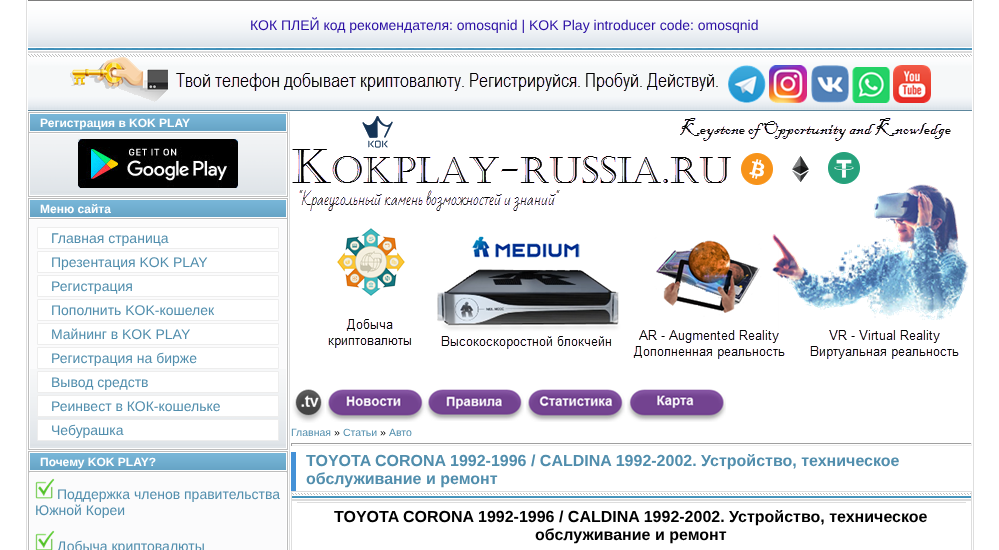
<!DOCTYPE html>
<meta charset="utf-8">
<style>body { margin: 0 } canvas { display: block }</style>
<canvas id="canvas" width="999" height="550"></canvas>
<img id="img1" src="images/1.png" hidden>
<img id="img2" src="images/2.png" hidden>
<img id="img3" src="images/3.png" hidden>
<img id="img4" src="images/4.png" hidden>
<img id="img5" src="images/5.png" hidden>
<img id="img6" src="images/6.png" hidden>
<img id="img7" src="images/7.png" hidden>
<img id="img8" src="images/8.png" hidden>
<img id="img9" src="images/9.png" hidden>
<img id="img10" src="images/10.png" hidden>
<img id="img11" src="images/11.png" hidden>
<img id="img12" src="images/12.png" hidden>
<img id="img13" src="images/13.png" hidden>
<img id="img14" src="images/14.png" hidden>
<img id="img15" src="images/15.png" hidden>
<img id="img16" src="images/16.png" hidden>
<img id="img17" src="images/17.png" hidden>
<img id="img18" src="images/18.png" hidden>
<img id="img19" src="images/19.png" hidden>
<img id="img20" src="images/20.png" hidden>
<img id="img21" src="images/21.png" hidden>
<script>
window.onload = function () {
    const canvas = document.getElementById('canvas');
    const context = canvas.getContext('2d');
    context.miterLimit = 4;
    context.fontKerning = 'normal';

    context.fillStyle = 'rgb(255, 255, 255)';
    context.fillRect(0, 0, 999, 550);
    context.fillStyle = 'rgb(222, 222, 222)';
    context.fillRect(973, 0, 1, 550);
    context.fillRect(26, 0, 1, 550);
    context.drawImage(document.getElementById('img1'), 28, 0, 944, 50);
    context.drawImage(document.getElementById('img2'), 28, 51, 944, 60);
    context.drawImage(document.getElementById('img3'), 70, 57, 648, 45);
    context.drawImage(document.getElementById('img4'), 728, 65, 38, 38);
    context.drawImage(document.getElementById('img5'), 769, 65, 38, 38);
    context.drawImage(document.getElementById('img6'), 811, 65, 38, 38);
    context.drawImage(document.getElementById('img7'), 852, 67, 38, 36);
    context.drawImage(document.getElementById('img8'), 893, 65, 38, 38);
    context.fillStyle = 'rgb(188, 188, 188)';
    context.fillRect(28, 112, 260, 85);
    context.drawImage(document.getElementById('img9'), 30, 114, 256, 17);
    context.strokeStyle = 'rgb(255, 255, 255)';
    context.strokeRect(29.5, 113.5, 257, 18);
    context.drawImage(document.getElementById('img10'), 30, 134, 256, 61);
    context.strokeRect(29.5, 133.5, 257, 62);
    context.drawImage(document.getElementById('img11'), 78, 139, 160, 49);
    context.fillRect(28, 198, 260, 252);
    context.drawImage(document.getElementById('img9'), 30, 200, 256, 17);
    context.strokeRect(29.5, 199.5, 257, 18);
    context.fillStyle = 'rgb(251, 251, 252)';
    context.fillRect(30, 220, 256, 149);
    context.drawImage(document.getElementById('img12'), 30, 369, 256, 79);
    context.strokeRect(29.5, 219.5, 257, 229);
    context.fillStyle = 'rgb(255, 255, 255)';
    context.beginPath();
    context.rect(37.5, 227.5, 241, 21);
    context.fill();
    context.strokeStyle = 'rgb(237, 237, 237)';
    context.stroke();
    context.beginPath();
    context.rect(37.5, 251.5, 241, 21);
    context.fill();
    context.stroke();
    context.beginPath();
    context.rect(37.5, 275.5, 241, 21);
    context.fill();
    context.stroke();
    context.beginPath();
    context.rect(37.5, 299.5, 241, 21);
    context.fill();
    context.stroke();
    context.beginPath();
    context.rect(37.5, 323.5, 241, 21);
    context.fill();
    context.stroke();
    context.beginPath();
    context.rect(37.5, 347.5, 241, 21);
    context.fill();
    context.stroke();
    context.beginPath();
    context.rect(37.5, 371.5, 241, 21);
    context.fill();
    context.stroke();
    context.beginPath();
    context.rect(37.5, 395.5, 241, 21);
    context.fill();
    context.stroke();
    context.beginPath();
    context.rect(37.5, 419.5, 241, 21);
    context.fill();
    context.stroke();
    context.fillStyle = 'rgb(188, 188, 188)';
    context.fillRect(28, 451, 260, 99);
    context.drawImage(document.getElementById('img9'), 30, 453, 256, 17);
    context.strokeStyle = 'rgb(255, 255, 255)';
    context.strokeRect(29.5, 452.5, 257, 18);
    context.fillStyle = 'rgb(251, 251, 252)';
    context.beginPath();
    context.rect(29.5, 472.5, 257, 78);
    context.fill();
    context.stroke();
    context.drawImage(document.getElementById('img13'), 35, 478, 20, 21);
    context.drawImage(document.getElementById('img14'), 35, 530, 20, 20);
    context.fillStyle = 'rgb(222, 222, 222)';
    context.fillRect(289, 112, 1, 438);
    context.drawImage(document.getElementById('img15'), 291, 112, 681, 264);
    context.drawImage(document.getElementById('img16'), 292, 389, 33, 34);
    context.drawImage(document.getElementById('img17'), 326, 389, 100, 33);
    context.drawImage(document.getElementById('img18'), 426, 389, 98, 32);
    context.drawImage(document.getElementById('img19'), 526, 389, 99, 33);
    context.drawImage(document.getElementById('img20'), 627, 389, 99, 33);
    context.fillStyle = 'rgb(159, 159, 159)';
    context.fillRect(291, 443, 681, 1);
    context.fillStyle = 'rgb(238, 238, 238)';
    context.fillRect(971, 443, 1, 3);
    context.fillRect(291, 445, 681, 1);
    context.fillStyle = 'rgb(159, 159, 159)';
    context.fillRect(291, 443, 1, 3);
    context.fillStyle = 'rgb(68, 145, 215)';
    context.fillRect(291, 452, 5, 39);
    context.drawImage(document.getElementById('img21'), 292, 493, 679, 8);
    context.strokeStyle = 'rgb(222, 222, 222)';
    context.strokeRect(291.5, 491.5, 680, 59);
    context.fillStyle = 'rgb(221, 221, 221)';
    context.fillRect(297, 502, 669, 1);
    context.font = '14px Liberation Sans';
    context.fillStyle = 'rgb(42, 14, 164)';
    context.fillText('КОК ПЛЕЙ код рекомендателя: omosqnid | KOK Play introducer code: omosqnid', 250, 30);
    context.font = 'bold 12px Liberation Sans';
    context.fillStyle = 'rgb(255, 255, 255)';
    context.fillText('Регистрация в KOK PLAY', 40, 127);
    context.fillText('Меню сайта', 40, 213);
    context.font = '14px Liberation Sans';
    context.fillStyle = 'rgb(81, 142, 173)';
    context.fillText('Главная страница', 51, 243);
    context.fillText('Презентация KOK PLAY', 51, 267);
    context.fillText('Регистрация', 51, 291);
    context.fillText('Пополнить KOK-кошелек', 51, 315);
    context.fillText('Майнинг в KOK PLAY', 51, 339);
    context.fillText('Регистрация на бирже', 51, 363);
    context.fillText('Вывод средств', 51, 387);
    context.fillText('Реинвест в КОК-кошельке', 51, 411);
    context.fillText('Чебурашка', 51, 435);
    context.font = 'bold 12px Liberation Sans';
    context.fillStyle = 'rgb(255, 255, 255)';
    context.fillText('Почему KOK PLAY?', 40, 466);
    context.font = '14px Liberation Sans';
    context.fillStyle = 'rgb(81, 142, 173)';
    context.fillText('Поддержка членов правительства', 57, 499);
    context.fillText('Южной Кореи', 35, 515);
    context.fillText('Добыча криптовалюты', 57, 551);
    context.font = '10.5px Liberation Sans';
    context.fillText('Главная', 291, 436);
    context.fillStyle = 'rgb(0, 0, 0)';
    context.fillText('»', 334, 436);
    context.fillStyle = 'rgb(81, 142, 173)';
    context.fillText('Статьи', 343, 436);
    context.fillStyle = 'rgb(0, 0, 0)';
    context.fillText('»', 380, 436);
    context.fillStyle = 'rgb(81, 142, 173)';
    context.fillText('Авто', 389, 436);
    context.font = 'bold 16px Liberation Sans';
    context.fillText('TOYOTA CORONA 1992-1996 / CALDINA 1992-2002. Устройство, техническое', 306, 466);
    context.fillText('обслуживание и ремонт', 306, 484);
    context.fillStyle = 'rgb(0, 0, 0)';
    context.fillText('TOYOTA CORONA 1992-1996 / CALDINA 1992-2002. Устройство, техническое', 334, 522);
    context.fillText('обслуживание и ремонт', 535, 540);
};
</script>
